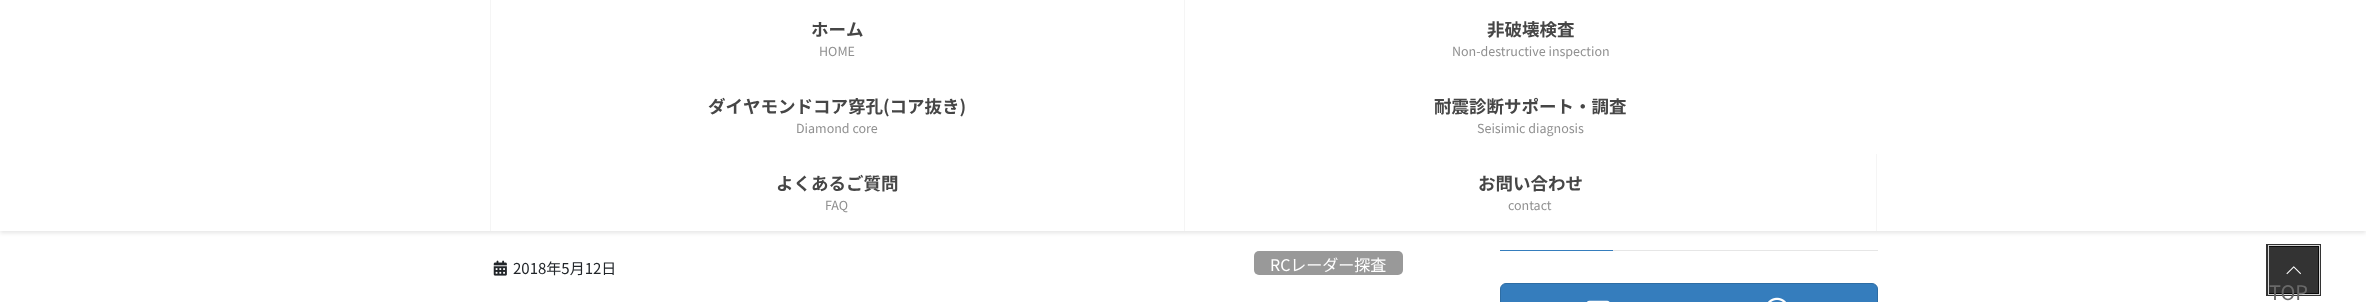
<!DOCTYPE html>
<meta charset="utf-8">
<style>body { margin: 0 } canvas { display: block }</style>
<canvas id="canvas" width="2366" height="302"></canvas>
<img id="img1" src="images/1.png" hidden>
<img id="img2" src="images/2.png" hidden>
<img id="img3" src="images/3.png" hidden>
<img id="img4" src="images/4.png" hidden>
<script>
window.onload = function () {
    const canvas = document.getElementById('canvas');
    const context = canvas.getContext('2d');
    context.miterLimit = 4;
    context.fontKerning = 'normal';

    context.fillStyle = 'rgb(255, 255, 255)';
    context.fillRect(0, 0, 2366, 302);
    context.fillStyle = 'rgba(0, 0, 0, 0.1)';
    context.filter = 'blur(2px)';
    context.beginPath();
    context.rect(0, 1, 2366, 232);
    context.fill();
    context.filter = 'none';
    context.fillStyle = 'rgb(255, 255, 255)';
    context.fillRect(0, 0, 2366, 231);
    context.fillStyle = 'rgb(245, 245, 245)';
    context.fillRect(490, 0, 1, 231);
    context.fillRect(1184, 0, 1, 231);
    context.fillRect(1876, 154, 1, 77);
    context.drawImage(document.getElementById('img1'), 493, 260, 14, 16);
    context.fillStyle = 'rgb(153, 153, 153)';
    context.beginPath();
    context.roundRect(1254, 251, 149, 24, 5);
    context.fill();
    context.fillStyle = 'rgb(230, 230, 230)';
    context.fillRect(1613, 250, 265, 1);
    context.fillStyle = 'rgb(53, 125, 189)';
    context.fillRect(1500, 250, 113, 1);
    context.beginPath();
    context.roundRect(1500.5, 283.5, 377, 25, 5.5);
    context.fill();
    context.strokeStyle = 'rgb(46, 109, 164)';
    context.stroke();
    context.drawImage(document.getElementById('img2'), 1587, 300, 23, 2);
    context.drawImage(document.getElementById('img3'), 1768, 297, 18, 5);
    context.strokeStyle = 'rgb(51, 51, 51)';
    context.lineWidth = 3;
    context.strokeRect(2267.5, 245.5, 52, 49);
    context.strokeStyle = 'rgb(214, 214, 214)';
    context.lineWidth = 1;
    context.strokeRect(2268.5, 245.5, 51, 49);
    context.fillStyle = 'rgba(0, 0, 0, 0.8)';
    context.fillRect(2269, 246, 50, 48);
    context.drawImage(document.getElementById('img4'), 2286, 266, 15, 9);
    context.font = 'bold 17.5px Noto Sans JP';
    context.fillStyle = 'rgb(70, 70, 70)';
    context.fillText('ホーム', 811, 36);
    context.font = '12.5px Noto Sans JP';
    context.fillStyle = 'rgb(144, 144, 144)';
    context.fillText('HOME', 819, 56);
    context.font = 'bold 17.5px Noto Sans JP';
    context.fillStyle = 'rgb(70, 70, 70)';
    context.fillText('非破壊検査', 1487, 36);
    context.font = '12.5px Noto Sans JP';
    context.fillStyle = 'rgb(144, 144, 144)';
    context.fillText('Non-destructive inspection', 1452, 56);
    context.font = 'bold 17.5px Noto Sans JP';
    context.fillStyle = 'rgb(70, 70, 70)';
    context.fillText('ダイヤモンドコア穿孔(コア抜き)', 708, 113);
    context.font = '12.5px Noto Sans JP';
    context.fillStyle = 'rgb(144, 144, 144)';
    context.fillText('Diamond core', 796, 133);
    context.font = 'bold 17.5px Noto Sans JP';
    context.fillStyle = 'rgb(70, 70, 70)';
    context.fillText('耐震診断サポート・調査', 1434, 113);
    context.font = '12.5px Noto Sans JP';
    context.fillStyle = 'rgb(144, 144, 144)';
    context.fillText('Seisimic diagnosis', 1477, 133);
    context.font = 'bold 17.5px Noto Sans JP';
    context.fillStyle = 'rgb(70, 70, 70)';
    context.fillText('よくあるご質問', 776, 190);
    context.font = '12.5px Noto Sans JP';
    context.fillStyle = 'rgb(144, 144, 144)';
    context.fillText('FAQ', 825, 210);
    context.font = 'bold 17.5px Noto Sans JP';
    context.fillStyle = 'rgb(70, 70, 70)';
    context.fillText('お問い合わせ', 1478, 190);
    context.font = '12.5px Noto Sans JP';
    context.fillStyle = 'rgb(144, 144, 144)';
    context.fillText('contact', 1508, 210);
    context.font = '15px Noto Sans JP';
    context.fillStyle = 'rgb(33, 37, 41)';
    context.fillText('2018年5月12日', 513, 274);
    context.font = '16px Noto Sans JP';
    context.fillStyle = 'rgb(255, 255, 255)';
    context.fillText('RCレーダー探査', 1270, 271);
    context.font = '20px Noto Sans JP';
    context.fillStyle = 'rgb(105, 105, 105)';
    context.fillText('TOP', 2269, 300);
};
</script>
